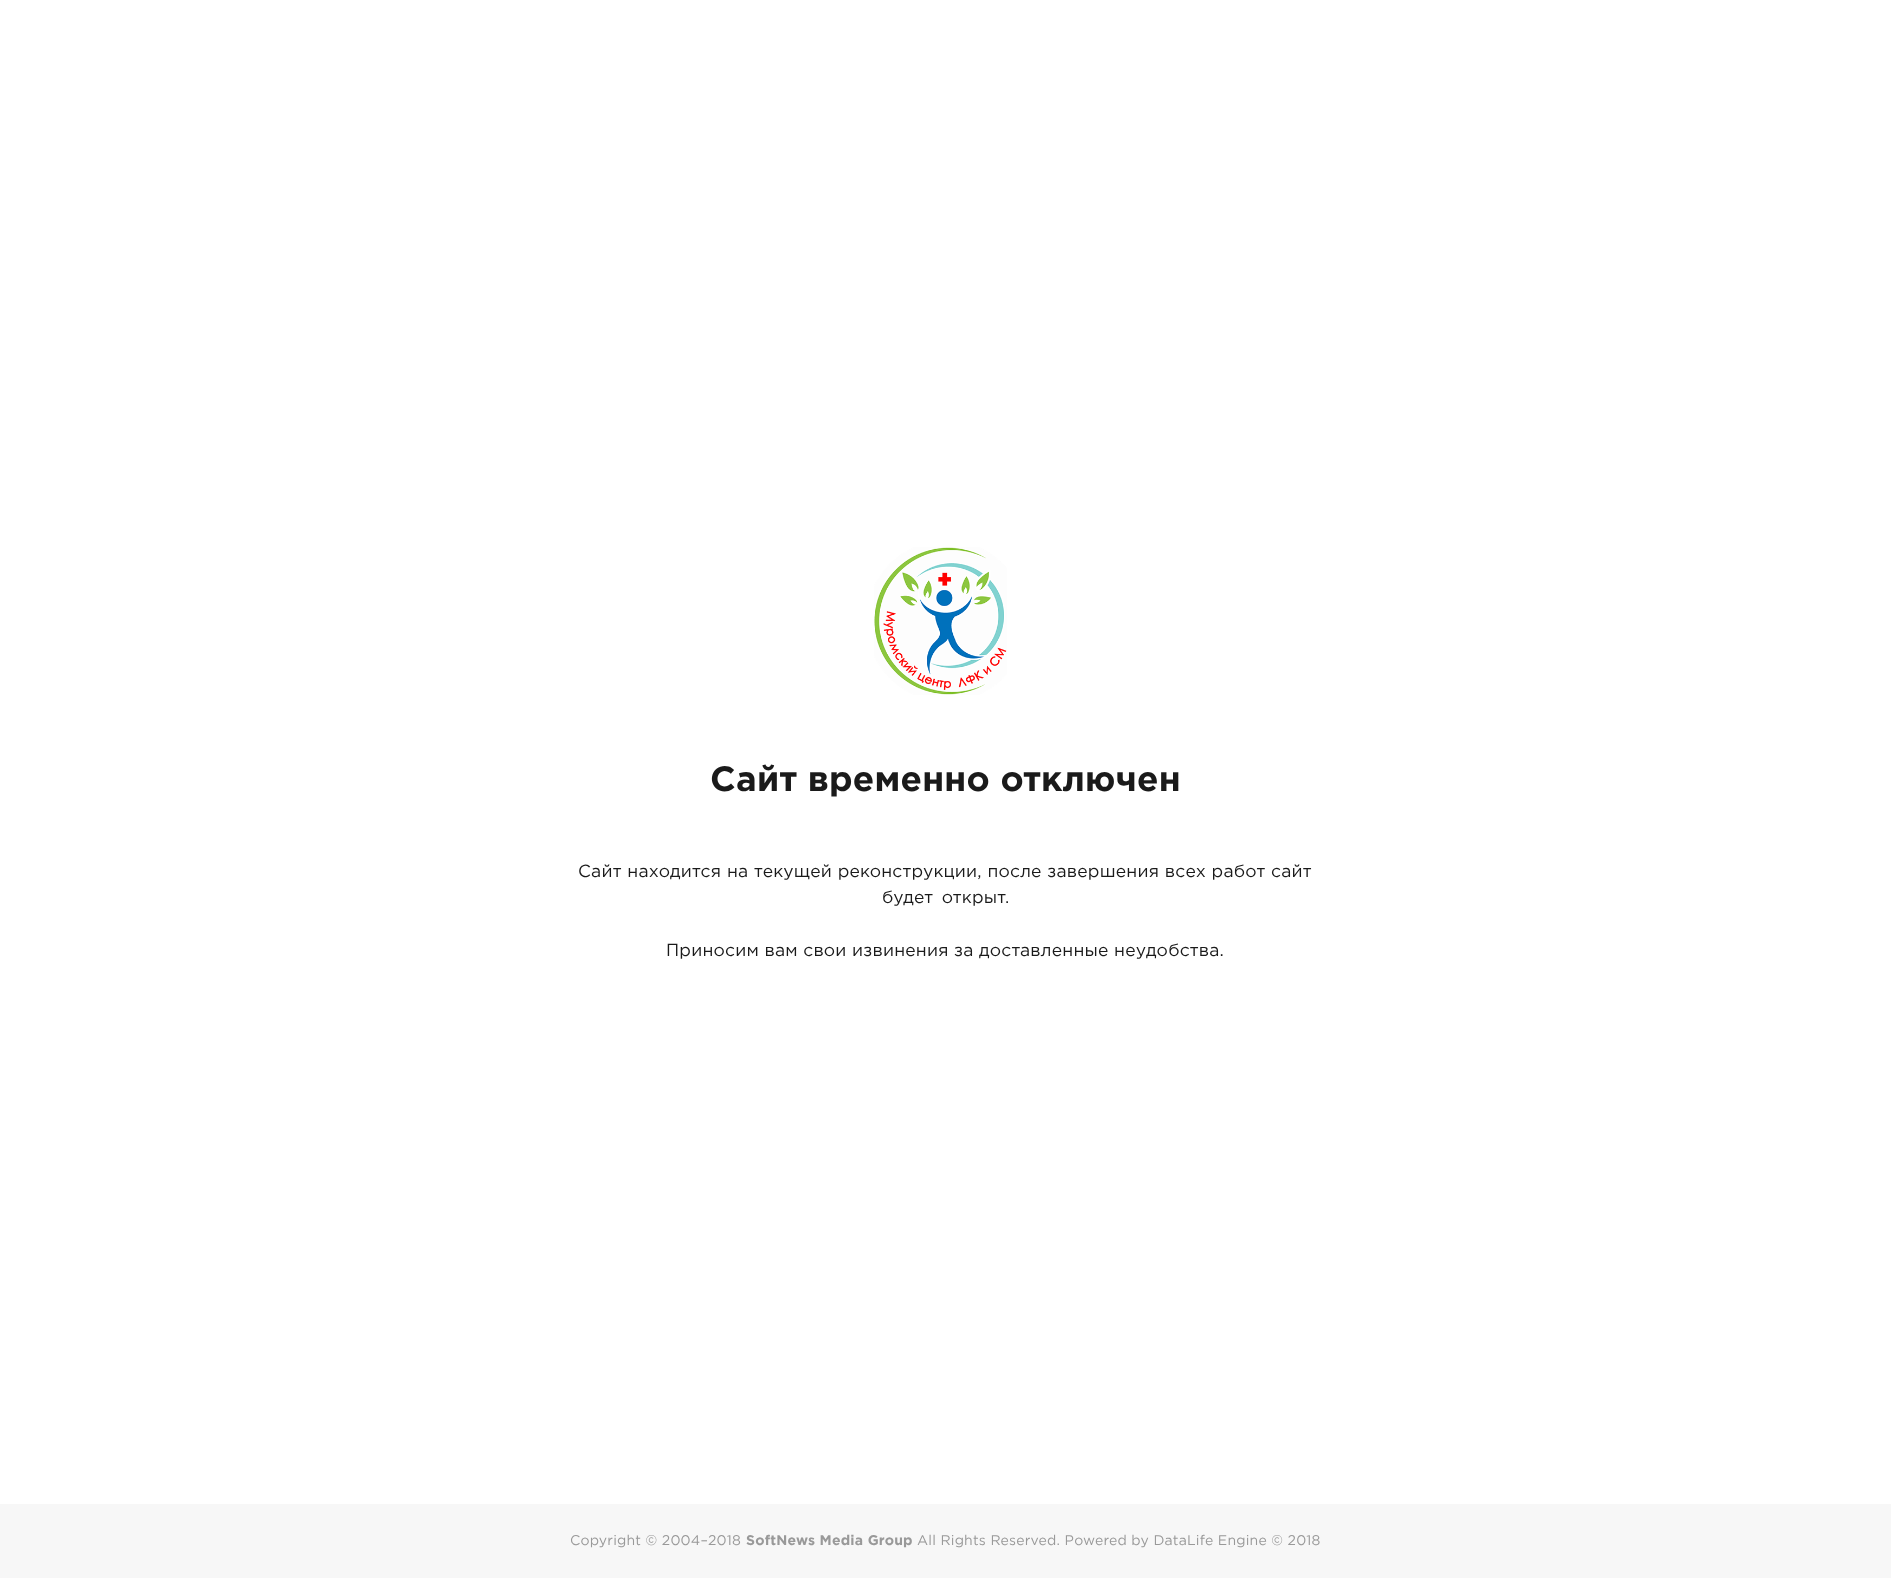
<!DOCTYPE html>
<meta charset="utf-8">
<style>body { margin: 0 } canvas { display: block }</style>
<canvas id="canvas" width="1891" height="1578"></canvas>
<img id="img1" src="images/1.png" hidden>
<script>
window.onload = function () {
    const canvas = document.getElementById('canvas');
    const context = canvas.getContext('2d');
    context.miterLimit = 4;
    context.fontKerning = 'normal';

    context.fillStyle = 'rgb(255, 255, 255)';
    context.fillRect(0, 0, 1891, 1578);
    context.drawImage(document.getElementById('img1'), 874, 547, 133, 148);
    context.fillStyle = 'rgb(247, 247, 247)';
    context.fillRect(0, 1504, 1891, 74);
    context.letterSpacing = '0.2px';
    context.font = 'bold 35px Gotham';
    context.fillStyle = 'rgb(26, 26, 26)';
    context.fillText('Сайт временно отключен', 710, 791);
    context.wordSpacing = '0.25px';
    context.font = '17.5px Gotham';
    context.fillText('Сайт находится на текущей реконструкции, после завершения всех работ сайт', 578, 877);
    context.wordSpacing = '3px';
    context.fillText('будет открыт.', 882, 903);
    context.wordSpacing = '0px';
    context.fillText('Приносим вам свои извинения за доставленные неудобства.', 666, 956);
    context.font = '14px Gotham';
    context.fillStyle = 'rgb(153, 153, 153)';
    context.fillText('Copyright © 2004–2018', 570, 1545);
    context.font = 'bold 14px Gotham';
    context.fillText('SoftNews Media Group', 746, 1545);
    context.font = '14px Gotham';
    context.fillText('All Rights Reserved. Powered by DataLife Engine © 2018', 917, 1545);
};
</script>
